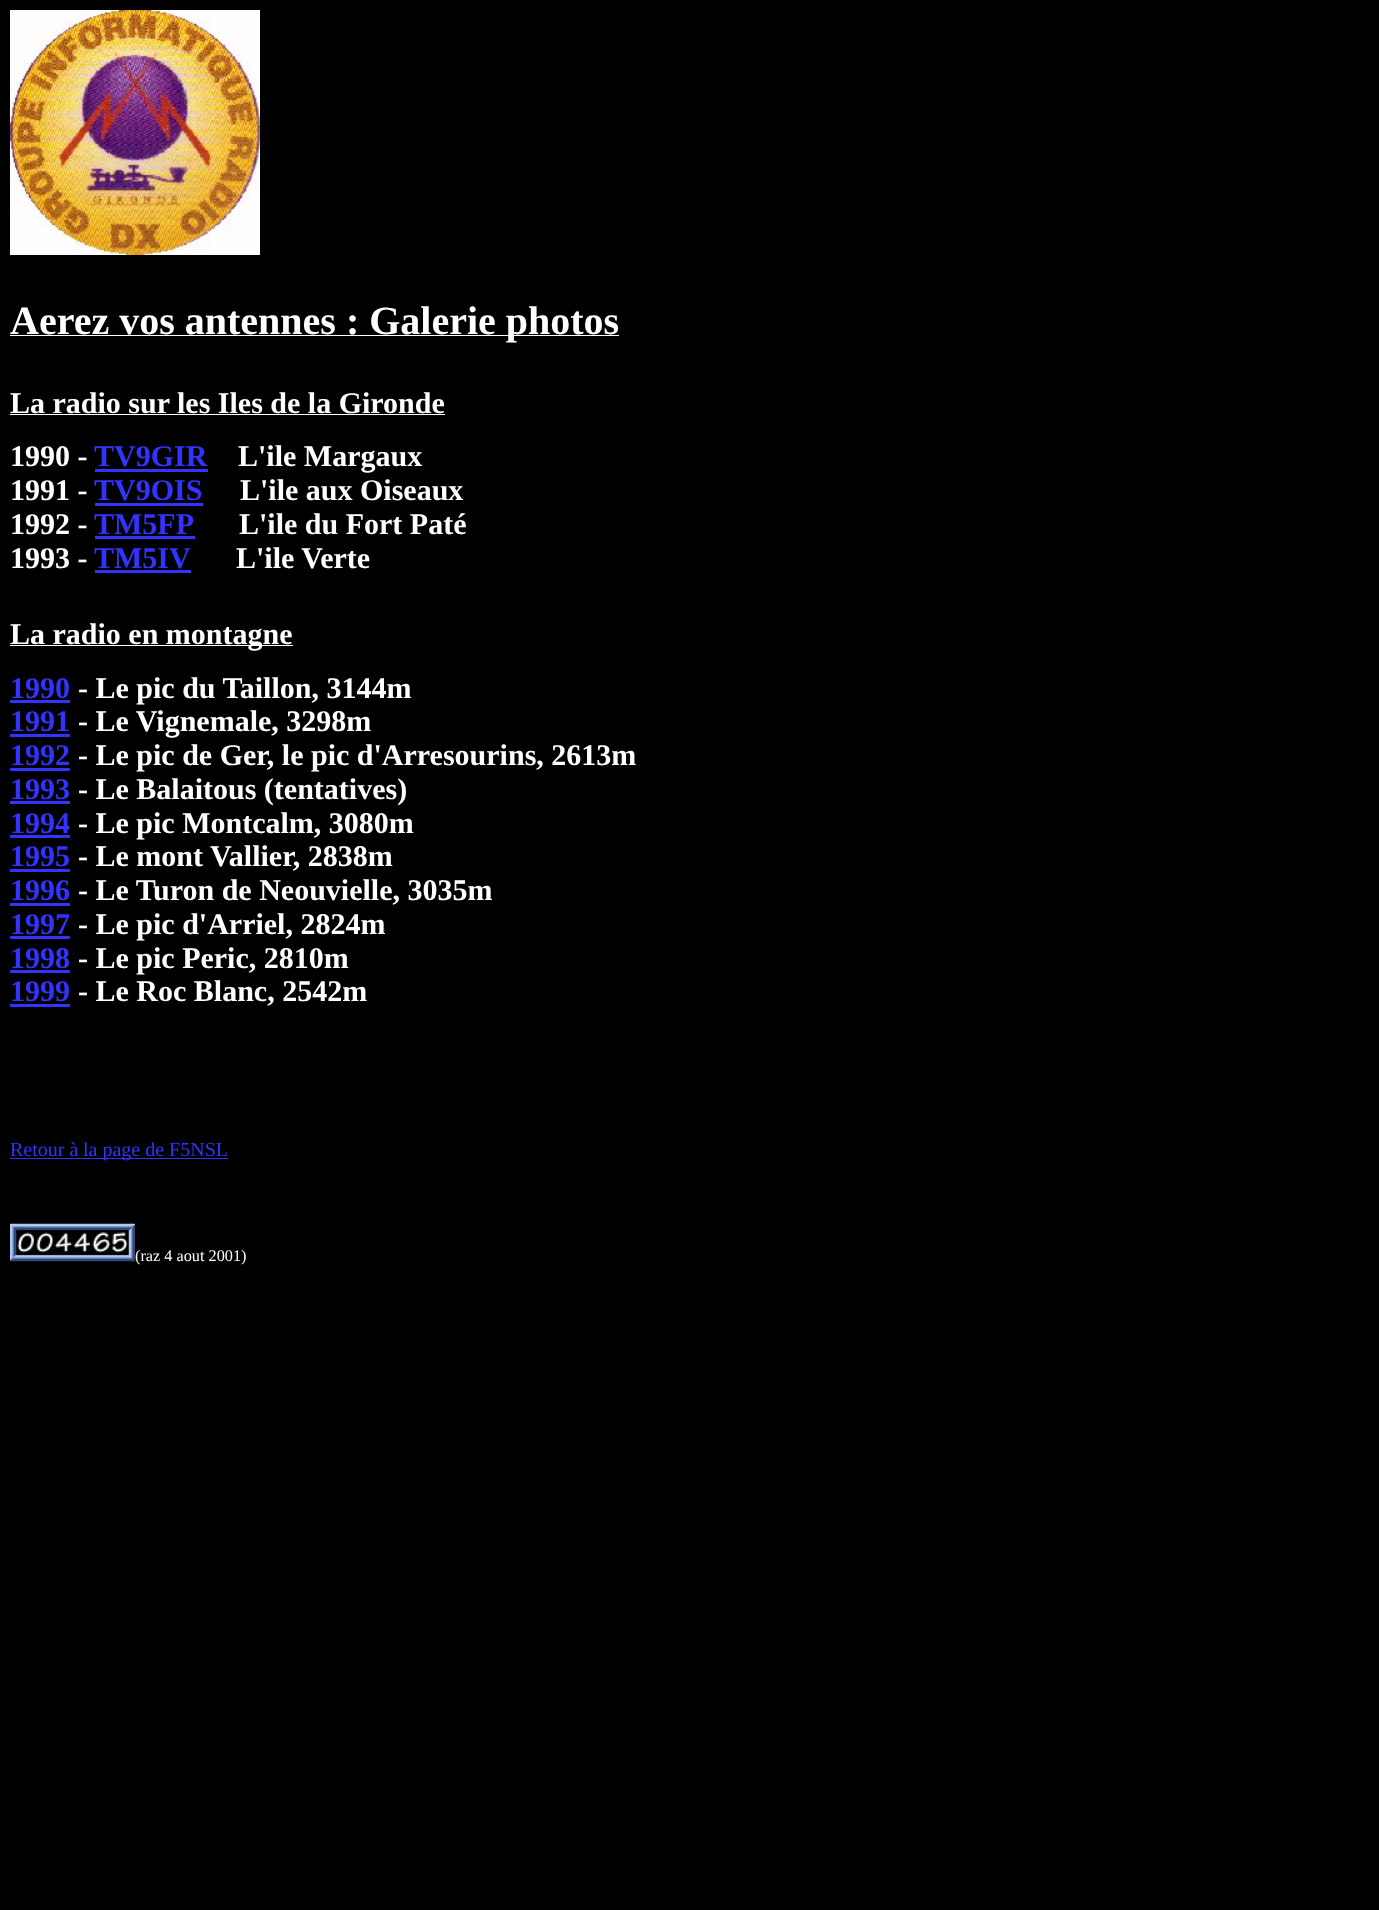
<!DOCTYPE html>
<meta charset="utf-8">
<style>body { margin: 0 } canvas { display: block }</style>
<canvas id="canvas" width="1379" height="1910"></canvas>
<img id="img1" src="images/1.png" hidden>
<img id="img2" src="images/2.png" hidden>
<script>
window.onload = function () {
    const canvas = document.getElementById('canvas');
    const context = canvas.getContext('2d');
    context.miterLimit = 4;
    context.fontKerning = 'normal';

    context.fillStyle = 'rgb(0, 0, 0)';
    context.fillRect(0, 0, 1379, 1910);
    context.drawImage(document.getElementById('img1'), 10, 10, 250, 245);
    context.fillStyle = 'rgb(255, 255, 255)';
    context.fillRect(10, 335, 609, 1);
    context.fillRect(10, 414, 435, 1);
    context.fillStyle = 'rgb(51, 51, 255)';
    context.fillRect(95, 469, 113, 3);
    context.fillRect(95, 503, 108, 3);
    context.fillRect(95, 536, 100, 3);
    context.fillRect(95, 570, 96, 3);
    context.fillStyle = 'rgb(255, 255, 255)';
    context.fillRect(10, 645, 283, 1);
    context.fillStyle = 'rgb(51, 51, 255)';
    context.fillRect(10, 700, 60, 3);
    context.fillRect(10, 734, 60, 3);
    context.fillRect(10, 768, 60, 3);
    context.fillRect(10, 801, 60, 3);
    context.fillRect(10, 835, 60, 3);
    context.fillRect(10, 869, 60, 3);
    context.fillRect(10, 903, 60, 3);
    context.fillRect(10, 936, 60, 3);
    context.fillRect(10, 970, 60, 3);
    context.fillRect(10, 1004, 60, 3);
    context.fillRect(10, 1158, 218, 1);
    context.drawImage(document.getElementById('img2'), 10, 1223, 125, 39);
    context.font = 'bold 40px Liberation Serif';
    context.fillStyle = 'rgb(255, 255, 255)';
    context.fillText('Aerez vos antennes : Galerie photos', 10, 334);
    context.font = 'bold 30px Liberation Serif';
    context.fillText('La radio sur les Iles de la Gironde', 10, 413);
    context.fillText('1990 -', 10, 466);
    context.fillStyle = 'rgb(51, 51, 255)';
    context.fillText('TV9GIR', 94, 466);
    context.fillStyle = 'rgb(255, 255, 255)';
    context.fillText('L\'ile Margaux', 238, 466);
    context.fillText('1991 -', 10, 500);
    context.fillStyle = 'rgb(51, 51, 255)';
    context.fillText('TV9OIS', 94, 500);
    context.fillStyle = 'rgb(255, 255, 255)';
    context.fillText('L\'ile aux Oiseaux', 240, 500);
    context.fillText('1992 -', 10, 534);
    context.fillStyle = 'rgb(51, 51, 255)';
    context.fillText('TM5FP', 94, 534);
    context.fillStyle = 'rgb(255, 255, 255)';
    context.fillText('L\'ile du Fort Paté', 239, 534);
    context.fillText('1993 -', 10, 568);
    context.fillStyle = 'rgb(51, 51, 255)';
    context.fillText('TM5IV', 94, 568);
    context.fillStyle = 'rgb(255, 255, 255)';
    context.fillText('L\'ile Verte', 236, 568);
    context.fillText('La radio en montagne', 10, 644);
    context.fillStyle = 'rgb(51, 51, 255)';
    context.fillText('1990', 10, 698);
    context.fillStyle = 'rgb(255, 255, 255)';
    context.fillText('- Le pic du Taillon, 3144m', 78, 698);
    context.fillStyle = 'rgb(51, 51, 255)';
    context.fillText('1991', 10, 731);
    context.fillStyle = 'rgb(255, 255, 255)';
    context.fillText('- Le Vignemale, 3298m', 78, 731);
    context.fillStyle = 'rgb(51, 51, 255)';
    context.fillText('1992', 10, 765);
    context.fillStyle = 'rgb(255, 255, 255)';
    context.fillText('- Le pic de Ger, le pic d\'Arresourins, 2613m', 78, 765);
    context.fillStyle = 'rgb(51, 51, 255)';
    context.fillText('1993', 10, 799);
    context.fillStyle = 'rgb(255, 255, 255)';
    context.fillText('- Le Balaitous (tentatives)', 78, 799);
    context.fillStyle = 'rgb(51, 51, 255)';
    context.fillText('1994', 10, 833);
    context.fillStyle = 'rgb(255, 255, 255)';
    context.fillText('- Le pic Montcalm, 3080m', 78, 833);
    context.fillStyle = 'rgb(51, 51, 255)';
    context.fillText('1995', 10, 866);
    context.fillStyle = 'rgb(255, 255, 255)';
    context.fillText('- Le mont Vallier, 2838m', 78, 866);
    context.fillStyle = 'rgb(51, 51, 255)';
    context.fillText('1996', 10, 900);
    context.fillStyle = 'rgb(255, 255, 255)';
    context.fillText('- Le Turon de Neouvielle, 3035m', 78, 900);
    context.fillStyle = 'rgb(51, 51, 255)';
    context.fillText('1997', 10, 934);
    context.fillStyle = 'rgb(255, 255, 255)';
    context.fillText('- Le pic d\'Arriel, 2824m', 78, 934);
    context.fillStyle = 'rgb(51, 51, 255)';
    context.fillText('1998', 10, 968);
    context.fillStyle = 'rgb(255, 255, 255)';
    context.fillText('- Le pic Peric, 2810m', 78, 968);
    context.fillStyle = 'rgb(51, 51, 255)';
    context.fillText('1999', 10, 1001);
    context.fillStyle = 'rgb(255, 255, 255)';
    context.fillText('- Le Roc Blanc, 2542m', 78, 1001);
    context.font = '20px Liberation Serif';
    context.fillStyle = 'rgb(51, 51, 255)';
    context.fillText('Retour à', 10, 1156);
    context.fillText('la page de F5NSL', 83, 1156);
    context.font = '16.25px Liberation Serif';
    context.fillStyle = 'rgb(255, 255, 255)';
    context.fillText('(raz 4 aout 2001)', 135, 1261);
};
</script>
